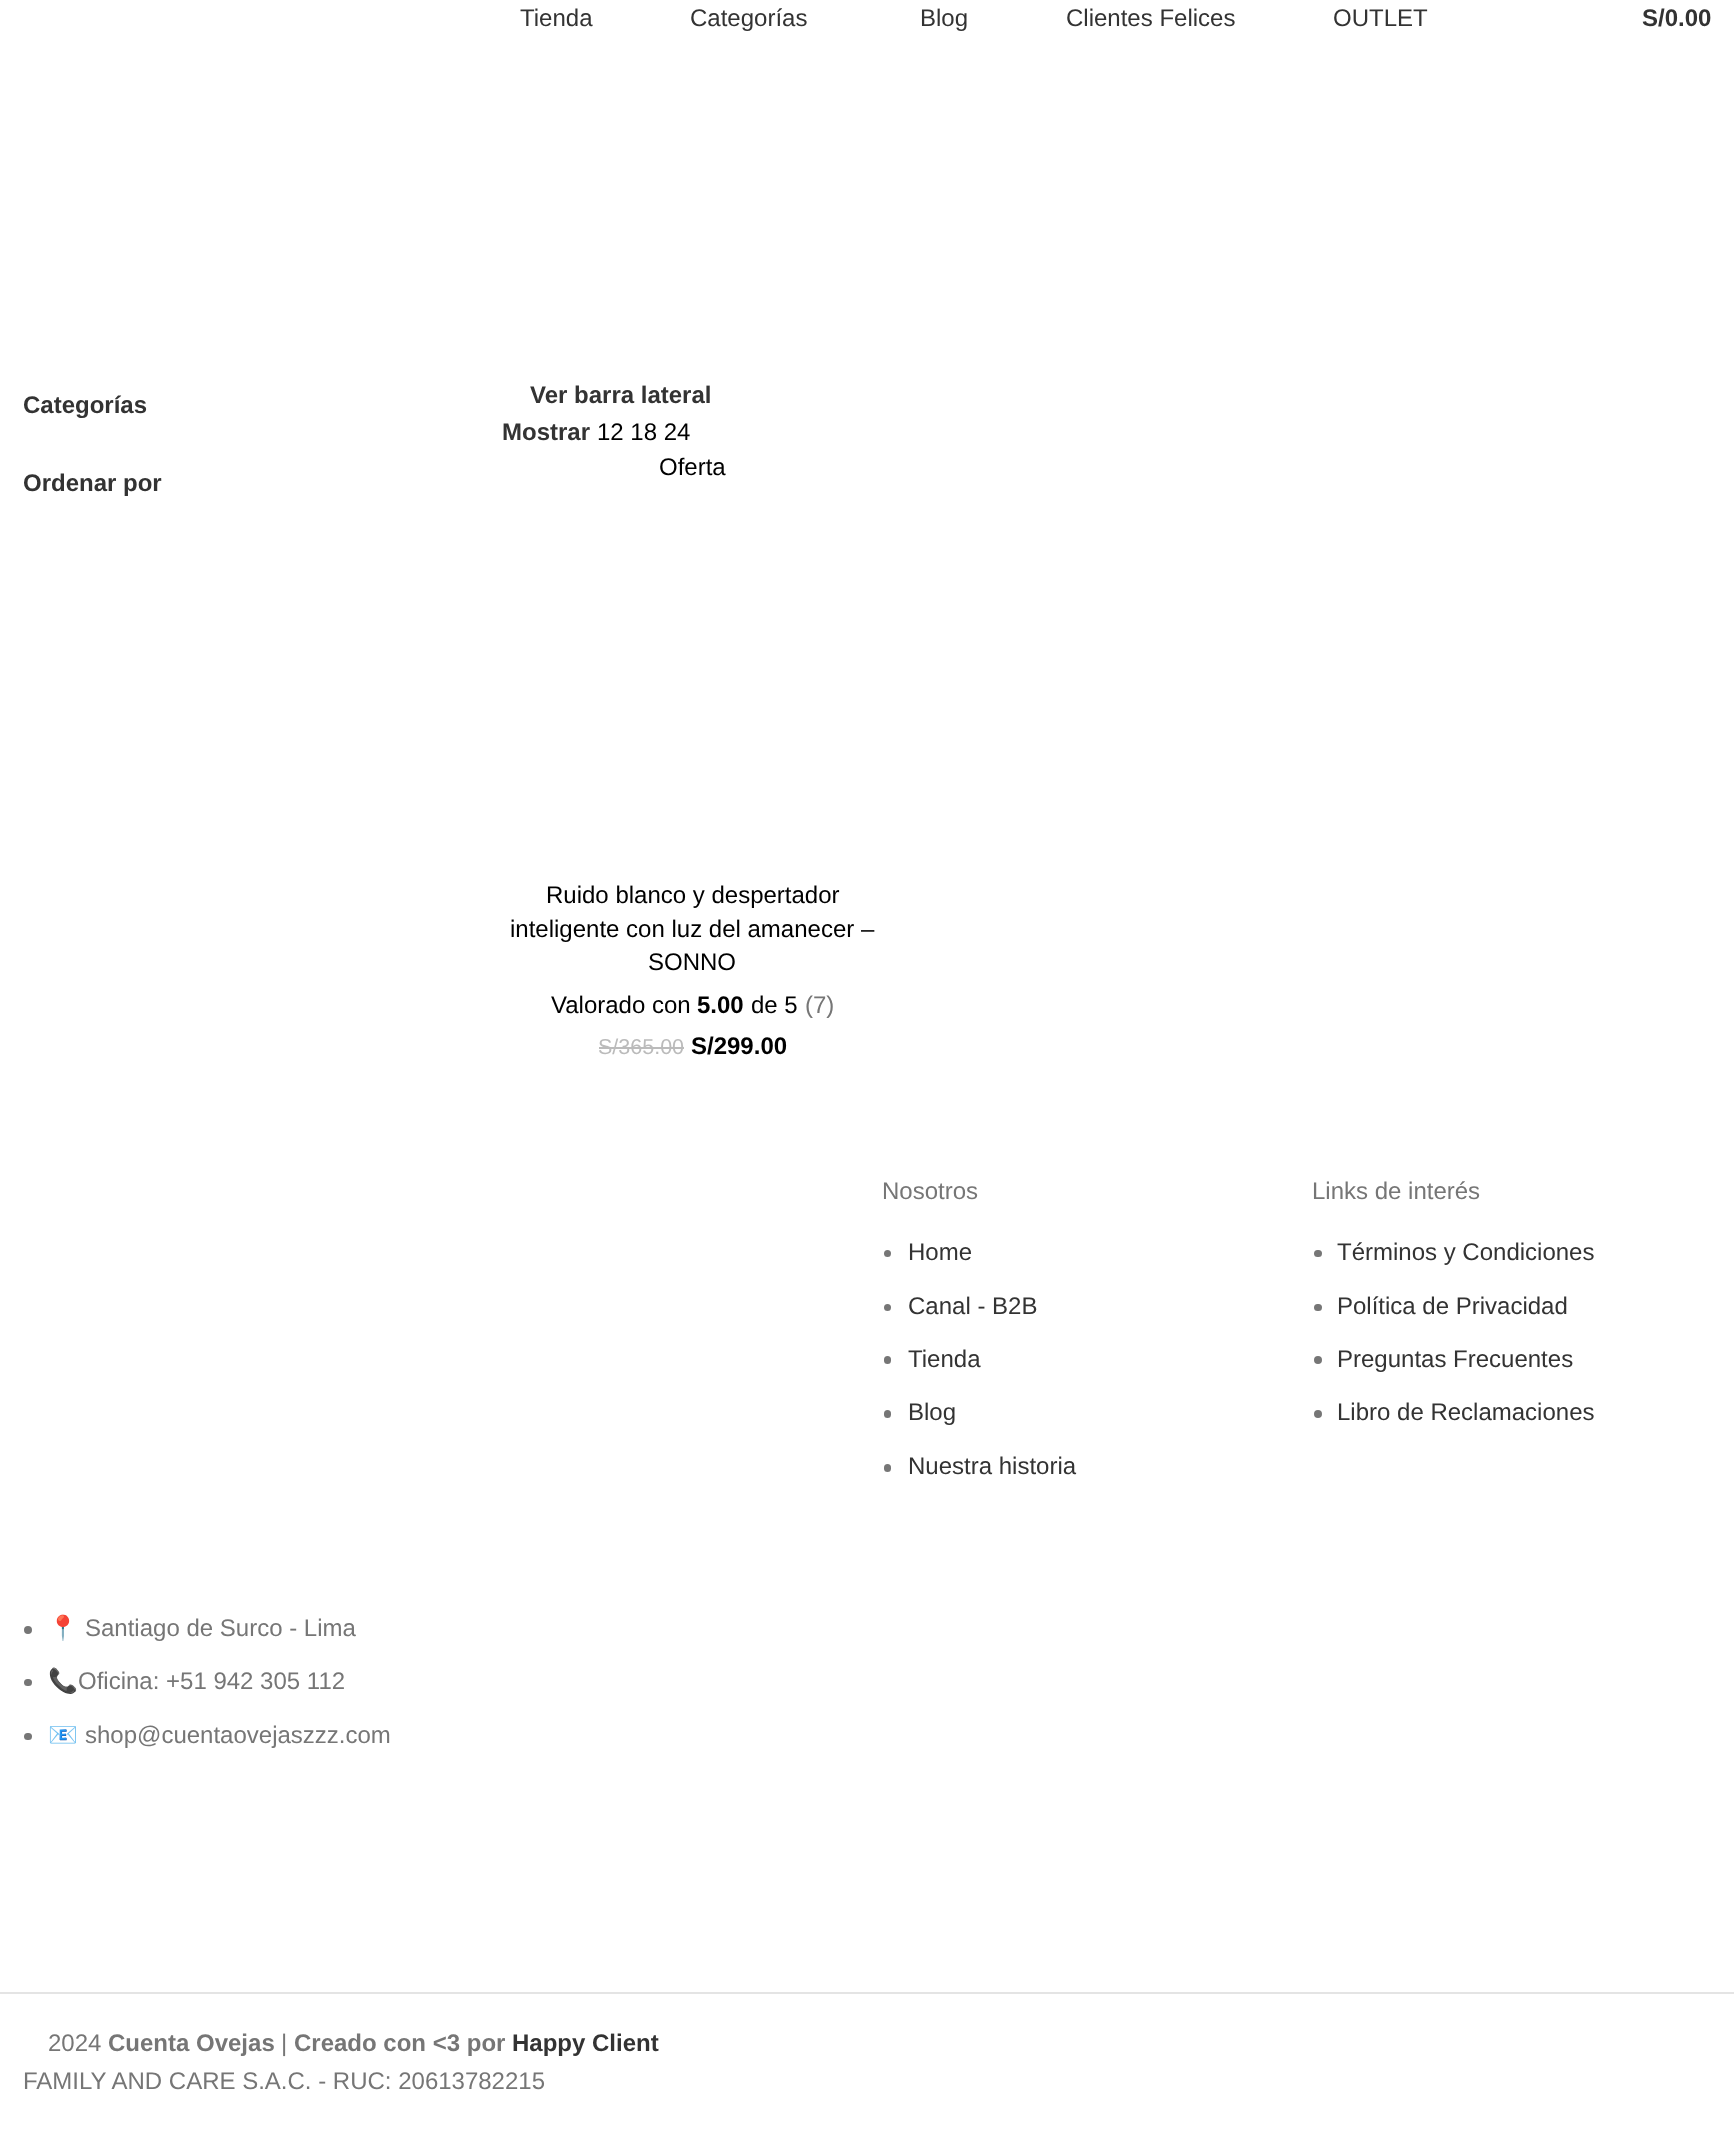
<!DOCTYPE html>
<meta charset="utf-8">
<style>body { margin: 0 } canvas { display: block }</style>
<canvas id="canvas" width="1734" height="2149"></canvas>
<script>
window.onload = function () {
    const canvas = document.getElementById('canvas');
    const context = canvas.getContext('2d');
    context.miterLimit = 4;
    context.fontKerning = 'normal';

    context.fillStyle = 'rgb(255, 255, 255)';
    context.fillRect(0, 0, 1734, 2149);
    context.fillStyle = 'rgb(187, 187, 187)';
    context.fillRect(599, 1047, 85, 2);
    context.fillStyle = 'rgb(118, 118, 118)';
    context.beginPath();
    context.arc(887.5, 1253.5, 3.5, 0, 2 * Math.PI);
    context.fill();
    context.beginPath();
    context.arc(887.5, 1307.5, 3.5, 0, 2 * Math.PI);
    context.fill();
    context.beginPath();
    context.roundRect(884, 1356, 7, 8, 3.5);
    context.fill();
    context.beginPath();
    context.roundRect(884, 1410, 7, 8, 3.5);
    context.fill();
    context.beginPath();
    context.roundRect(884, 1464, 7, 8, 3.5);
    context.fill();
    context.beginPath();
    context.roundRect(1314, 1250, 8, 7, 3.5);
    context.fill();
    context.beginPath();
    context.roundRect(1314, 1304, 8, 7, 3.5);
    context.fill();
    context.beginPath();
    context.arc(1318, 1360, 4, 0, 2 * Math.PI);
    context.fill();
    context.beginPath();
    context.arc(1318, 1414, 4, 0, 2 * Math.PI);
    context.fill();
    context.beginPath();
    context.arc(28, 1630, 4, 0, 2 * Math.PI);
    context.fill();
    context.beginPath();
    context.roundRect(24, 1679, 8, 7, 3.5);
    context.fill();
    context.beginPath();
    context.roundRect(24, 1733, 8, 7, 3.5);
    context.fill();
    context.fillStyle = 'rgb(228, 228, 228)';
    context.fillRect(0, 1992, 1734, 2);
    context.font = '24px Liberation Sans';
    context.fillStyle = 'rgb(51, 51, 51)';
    context.fillText('Tienda', 520, 26);
    context.fillText('Categorías', 690, 26);
    context.fillText('Blog', 920, 26);
    context.fillText('Clientes Felices', 1066, 26);
    context.fillText('OUTLET', 1333, 26);
    context.font = 'bold 24px Liberation Sans';
    context.fillText('S/0.00', 1642, 26);
    context.fillText('Categorías', 23, 413);
    context.fillText('Ordenar por', 23, 491);
    context.fillText('Ver barra lateral', 530, 403);
    context.fillText('Mostrar', 502, 440);
    context.font = '24px Liberation Sans';
    context.fillStyle = 'rgb(0, 0, 0)';
    context.fillText('12 18 24', 597, 440);
    context.fillText('Oferta', 659, 475);
    context.fillText('Ruido blanco y despertador', 546, 903);
    context.fillText('inteligente con luz del amanecer –', 510, 937);
    context.fillText('SONNO', 648, 970);
    context.fillText('Valorado con', 551, 1013);
    context.font = 'bold 24px Liberation Sans';
    context.fillText('5.00', 697, 1013);
    context.font = '24px Liberation Sans';
    context.fillText('de 5', 751, 1013);
    context.fillStyle = 'rgb(118, 118, 118)';
    context.fillText('(7)', 805, 1013);
    context.font = '21.5px Liberation Sans';
    context.fillStyle = 'rgb(187, 187, 187)';
    context.fillText('S/365.00', 598, 1054);
    context.font = 'bold 24px Liberation Sans';
    context.fillStyle = 'rgb(0, 0, 0)';
    context.fillText('S/299.00', 691, 1054);
    context.font = '24px Liberation Sans';
    context.fillStyle = 'rgb(118, 118, 118)';
    context.fillText('Nosotros', 882, 1199);
    context.fillStyle = 'rgb(51, 51, 51)';
    context.fillText('Home', 908, 1260);
    context.fillText('Canal - B2B', 908, 1314);
    context.fillText('Tienda', 908, 1367);
    context.fillText('Blog', 908, 1420);
    context.fillText('Nuestra historia', 908, 1474);
    context.fillStyle = 'rgb(118, 118, 118)';
    context.fillText('Links de interés', 1312, 1199);
    context.fillStyle = 'rgb(51, 51, 51)';
    context.fillText('Términos y Condiciones', 1337, 1260);
    context.fillText('Política de Privacidad', 1337, 1314);
    context.fillText('Preguntas Frecuentes', 1337, 1367);
    context.fillText('Libro de Reclamaciones', 1337, 1420);
    context.font = '24px Noto Color Emoji';
    context.fillStyle = 'rgb(118, 118, 118)';
    context.fillText('📍', 48, 1636);
    context.font = '24px Liberation Sans';
    context.fillText('Santiago de Surco - Lima', 85, 1636);
    context.font = '24px Noto Color Emoji';
    context.fillText('📞', 48, 1689);
    context.font = '24px Liberation Sans';
    context.fillText('Oficina: +51 942 305 112', 78, 1689);
    context.font = '24px Noto Color Emoji';
    context.fillText('📧', 48, 1743);
    context.font = '24px Liberation Sans';
    context.fillText('shop@cuentaovejaszzz.com', 85, 1743);
    context.fillText('2024', 48, 2051);
    context.font = 'bold 24px Liberation Sans';
    context.fillText('Cuenta Ovejas', 108, 2051);
    context.font = '24px Liberation Sans';
    context.fillText('|', 281, 2051);
    context.font = 'bold 24px Liberation Sans';
    context.fillText('Creado con <3 por', 294, 2051);
    context.fillStyle = 'rgb(51, 51, 51)';
    context.fillText('Happy Client', 512, 2051);
    context.font = '24px Liberation Sans';
    context.fillStyle = 'rgb(118, 118, 118)';
    context.fillText('FAMILY AND CARE S.A.C. - RUC: 20613782215', 23, 2089);
};
</script>
